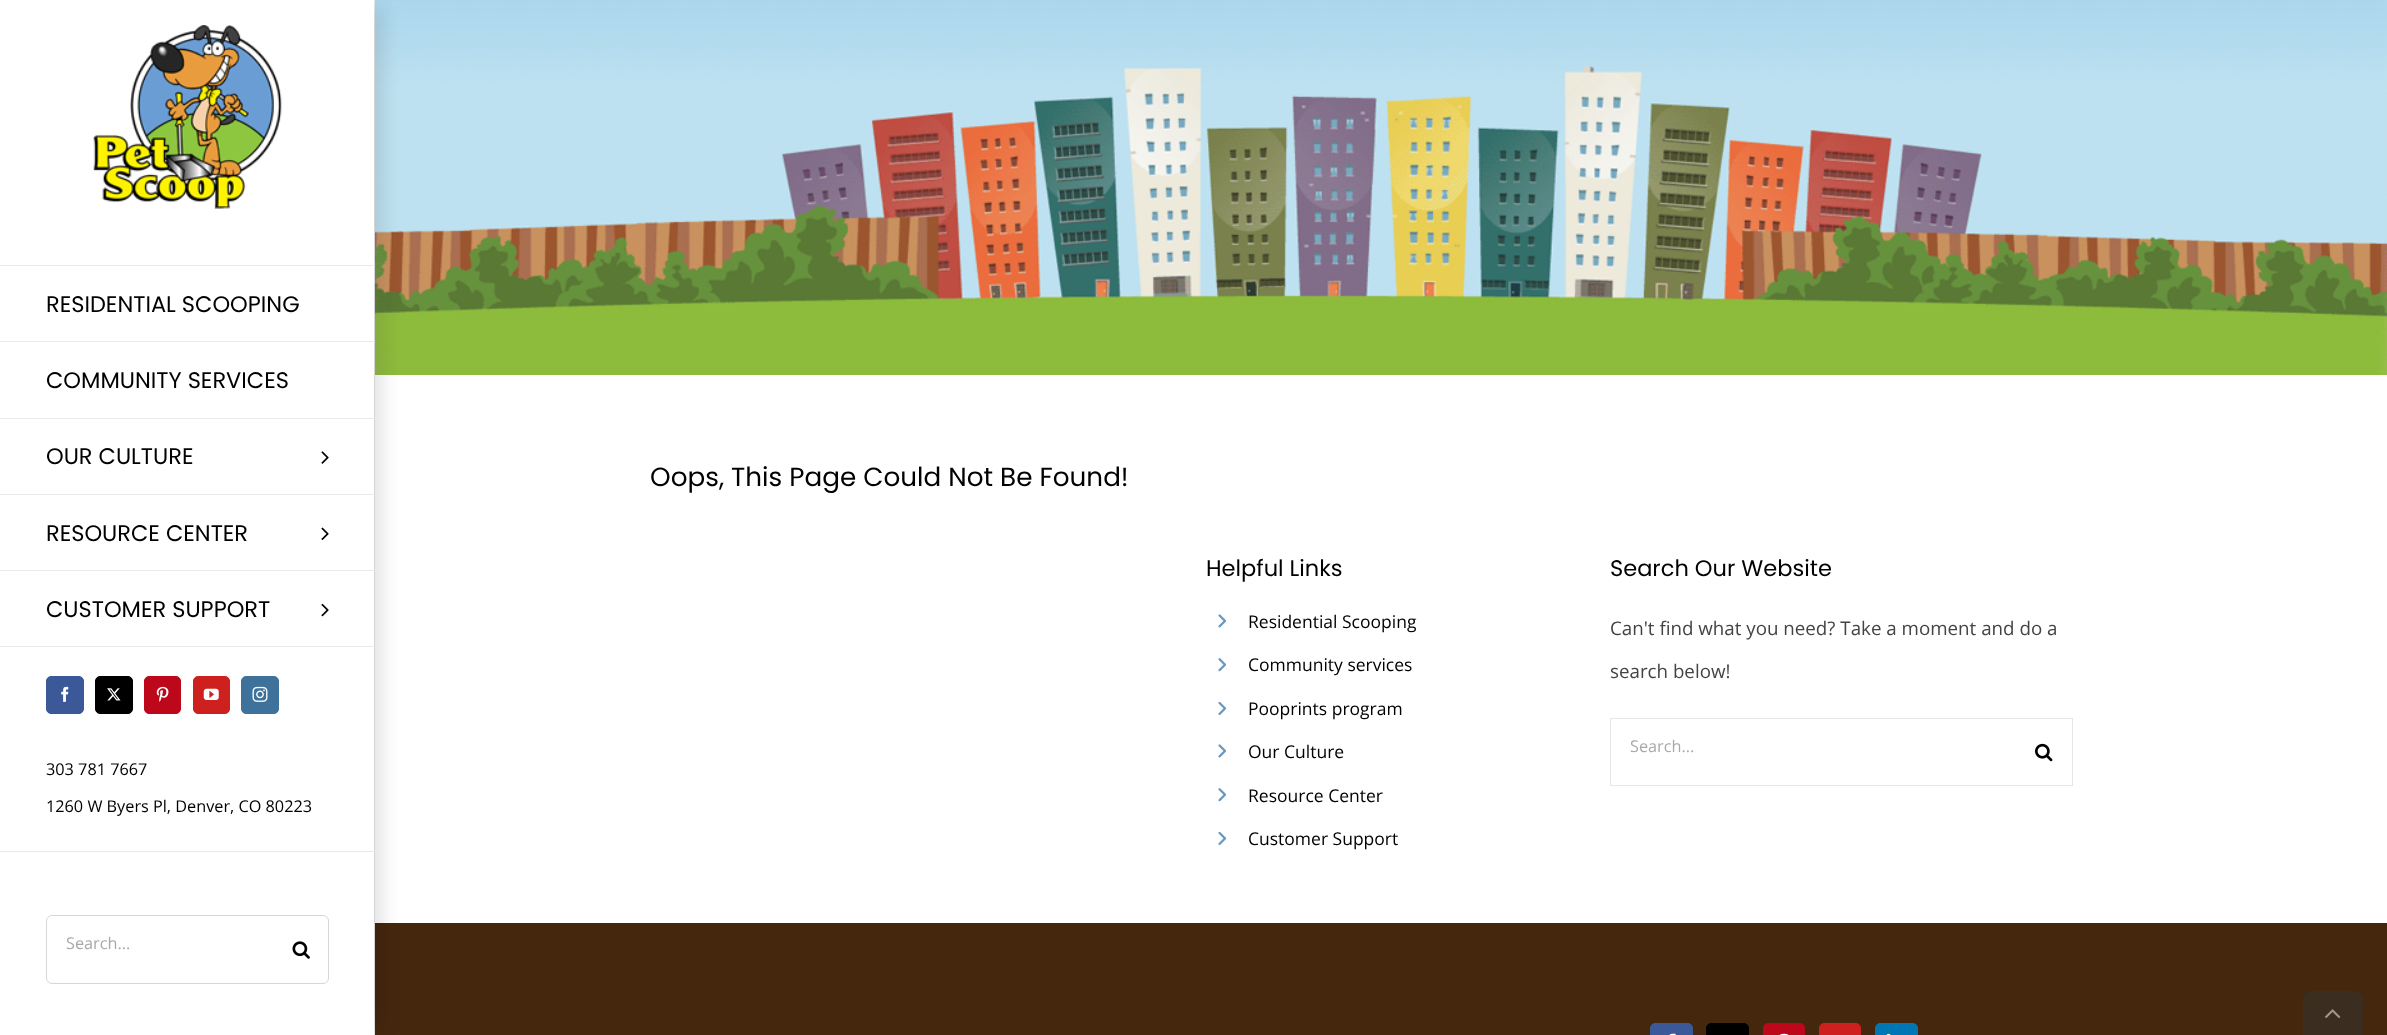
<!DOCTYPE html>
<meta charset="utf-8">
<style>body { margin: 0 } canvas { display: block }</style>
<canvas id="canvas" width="2387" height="1035"></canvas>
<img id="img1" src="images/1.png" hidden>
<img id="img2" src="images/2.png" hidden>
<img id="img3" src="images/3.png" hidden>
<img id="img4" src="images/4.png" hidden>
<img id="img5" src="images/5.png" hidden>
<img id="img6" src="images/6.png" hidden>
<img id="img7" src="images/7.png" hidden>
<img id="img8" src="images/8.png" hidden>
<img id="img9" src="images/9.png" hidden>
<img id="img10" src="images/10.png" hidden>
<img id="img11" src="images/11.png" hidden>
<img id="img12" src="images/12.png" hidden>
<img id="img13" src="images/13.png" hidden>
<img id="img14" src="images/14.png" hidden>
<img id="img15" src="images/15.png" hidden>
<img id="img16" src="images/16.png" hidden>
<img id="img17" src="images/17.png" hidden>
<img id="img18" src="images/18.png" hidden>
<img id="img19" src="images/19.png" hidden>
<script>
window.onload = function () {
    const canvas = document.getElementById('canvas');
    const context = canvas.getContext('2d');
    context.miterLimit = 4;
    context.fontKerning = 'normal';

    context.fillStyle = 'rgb(255, 255, 255)';
    context.fillRect(0, 0, 2387, 1035);
    context.drawImage(document.getElementById('img1'), 375, 0, 2012, 375);
    context.drawImage(document.getElementById('img2'), 93, 25, 189, 184);
    context.fillStyle = 'rgb(234, 234, 234)';
    context.fillRect(374, 0, 1, 1035);
    context.fillStyle = 'rgb(69, 39, 14)';
    context.fillRect(375, 923, 2012, 112);
    context.save();
    context.beginPath();
    context.moveTo(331, 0);
    context.lineTo(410, 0);
    context.lineTo(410, 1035);
    context.lineTo(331, 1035);
    context.closePath();
    context.moveTo(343, 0);
    context.lineTo(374, 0);
    context.lineTo(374, 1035);
    context.lineTo(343, 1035);
    context.closePath();
    context.clip('evenodd');
    context.fillStyle = 'rgba(0, 0, 0, 0.14)';
    context.filter = 'blur(9.5px)';
    context.beginPath();
    context.rect(361, 6, 19, 1023);
    context.fill();
    context.filter = 'none';
    context.restore();
    context.fillStyle = 'rgb(234, 234, 234)';
    context.fillRect(0, 265, 375, 1);
    context.fillRect(0, 341, 375, 1);
    context.fillRect(0, 418, 375, 1);
    context.fillRect(0, 494, 375, 1);
    context.drawImage(document.getElementById('img3'), 321, 451, 8, 13);
    context.fillRect(0, 570, 375, 1);
    context.drawImage(document.getElementById('img4'), 321, 527, 8, 13);
    context.fillRect(0, 646, 375, 1);
    context.drawImage(document.getElementById('img5'), 321, 603, 8, 14);
    context.fillStyle = 'rgb(59, 89, 152)';
    context.beginPath();
    context.roundRect(46.5, 676.5, 37, 37, 4.5);
    context.fill();
    context.strokeStyle = 'rgb(59, 89, 152)';
    context.stroke();
    context.drawImage(document.getElementById('img6'), 61, 686, 8, 16);
    context.fillStyle = 'rgb(0, 0, 0)';
    context.beginPath();
    context.roundRect(95.5, 676.5, 37, 37, 4.5);
    context.fill();
    context.strokeStyle = 'rgb(0, 0, 0)';
    context.stroke();
    context.drawImage(document.getElementById('img7'), 107, 688, 14, 13);
    context.fillStyle = 'rgb(189, 8, 28)';
    context.beginPath();
    context.roundRect(144.5, 676.5, 36, 37, 4.5);
    context.fill();
    context.strokeStyle = 'rgb(189, 8, 28)';
    context.stroke();
    context.drawImage(document.getElementById('img8'), 156, 686, 13, 16);
    context.fillStyle = 'rgb(205, 32, 31)';
    context.beginPath();
    context.roundRect(193.5, 676.5, 36, 37, 4.5);
    context.fill();
    context.strokeStyle = 'rgb(205, 32, 31)';
    context.stroke();
    context.drawImage(document.getElementById('img9'), 203, 688, 16, 12);
    context.fillStyle = 'rgb(63, 114, 155)';
    context.beginPath();
    context.roundRect(241.5, 676.5, 37, 37, 4.5);
    context.fill();
    context.strokeStyle = 'rgb(63, 114, 155)';
    context.stroke();
    context.drawImage(document.getElementById('img10'), 252, 686, 16, 16);
    context.fillStyle = 'rgb(234, 234, 234)';
    context.fillRect(0, 851, 375, 1);
    context.beginPath();
    context.roundRect(46.5, 915.5, 282, 68, 5.5);
    context.strokeStyle = 'rgb(215, 215, 215)';
    context.stroke();
    context.fillStyle = 'rgb(255, 255, 255)';
    context.beginPath();
    context.roundRect(48, 916, 226, 54, [5, 0, 0, 0]);
    context.fill();
    context.drawImage(document.getElementById('img11'), 292, 941, 18, 18);
    context.drawImage(document.getElementById('img12'), 1218, 614, 9, 14);
    context.drawImage(document.getElementById('img13'), 1218, 658, 9, 14);
    context.drawImage(document.getElementById('img14'), 1218, 701, 9, 14);
    context.drawImage(document.getElementById('img12'), 1218, 744, 9, 14);
    context.drawImage(document.getElementById('img13'), 1218, 788, 9, 14);
    context.drawImage(document.getElementById('img14'), 1218, 831, 9, 14);
    context.strokeStyle = 'rgb(231, 230, 230)';
    context.strokeRect(1610.5, 718.5, 462, 67);
    context.drawImage(document.getElementById('img15'), 2035, 743, 18, 19);
    context.fillStyle = 'rgb(59, 89, 152)';
    context.beginPath();
    context.roundRect(1650.5, 1023.5, 42, 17, 4.5);
    context.fill();
    context.strokeStyle = 'rgb(59, 89, 152)';
    context.stroke();
    context.drawImage(document.getElementById('img16'), 1669, 1033, 7, 2);
    context.fillStyle = 'rgb(0, 0, 0)';
    context.beginPath();
    context.roundRect(1706.5, 1023.5, 42, 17, 4.5);
    context.fill();
    context.strokeStyle = 'rgb(0, 0, 0)';
    context.stroke();
    context.fillStyle = 'rgb(189, 8, 28)';
    context.beginPath();
    context.roundRect(1763.5, 1023.5, 41, 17, 4.5);
    context.fill();
    context.strokeStyle = 'rgb(189, 8, 28)';
    context.stroke();
    context.drawImage(document.getElementById('img17'), 1779, 1033, 10, 2);
    context.fillStyle = 'rgb(205, 32, 31)';
    context.beginPath();
    context.roundRect(1819.5, 1023.5, 41, 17, 4.5);
    context.fill();
    context.strokeStyle = 'rgb(205, 32, 31)';
    context.stroke();
    context.fillStyle = 'rgb(0, 119, 181)';
    context.beginPath();
    context.roundRect(1875.5, 1023.5, 42, 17, 4.5);
    context.fill();
    context.strokeStyle = 'rgb(0, 119, 181)';
    context.stroke();
    context.drawImage(document.getElementById('img18'), 1886, 1033, 5, 2);
    context.fillStyle = 'rgb(60, 45, 33)';
    context.beginPath();
    context.roundRect(2303, 991, 60, 44, [8, 8, 0, 0]);
    context.fill();
    context.drawImage(document.getElementById('img19'), 2325, 1009, 16, 9);
    context.font = '22.5px Poppins';
    context.fillStyle = 'rgb(0, 0, 0)';
    context.fillText('RESIDENTIAL SCOOPING', 46, 312);
    context.fillText('COMMUNITY SERVICES', 46, 388);
    context.fillText('OUR CULTURE', 46, 464);
    context.fillText('RESOURCE CENTER', 46, 541);
    context.fillText('CUSTOMER SUPPORT', 46, 617);
    context.font = '16.25px Open Sans';
    context.fillText('303 781 7667', 46, 775);
    context.fillText('1260 W Byers Pl, Denver, CO 80223', 46, 812);
    context.fillStyle = 'rgb(170, 169, 169)';
    context.fillText('Search...', 66, 949);
    context.font = '26.25px Poppins';
    context.fillStyle = 'rgb(0, 0, 0)';
    context.fillText('Oops, This Page Could Not Be Found!', 650, 486);
    context.font = '22.5px Poppins';
    context.fillText('Helpful Links', 1206, 576);
    context.font = '17.5px Open Sans';
    context.fillText('Residential Scooping', 1248, 628);
    context.fillText('Community services', 1248, 671);
    context.fillText('Pooprints program', 1248, 715);
    context.fillText('Our Culture', 1248, 758);
    context.fillText('Resource Center', 1248, 802);
    context.fillText('Customer Support', 1248, 845);
    context.font = '22.5px Poppins';
    context.fillText('Search Our Website', 1610, 576);
    context.font = '18.75px Open Sans';
    context.fillStyle = 'rgb(68, 68, 68)';
    context.fillText('Can\'t find what you need? Take a moment and do a', 1610, 635);
    context.fillText('search below!', 1610, 678);
    context.font = '16.25px Open Sans';
    context.fillStyle = 'rgb(170, 169, 169)';
    context.fillText('Search...', 1630, 752);
};
</script>
